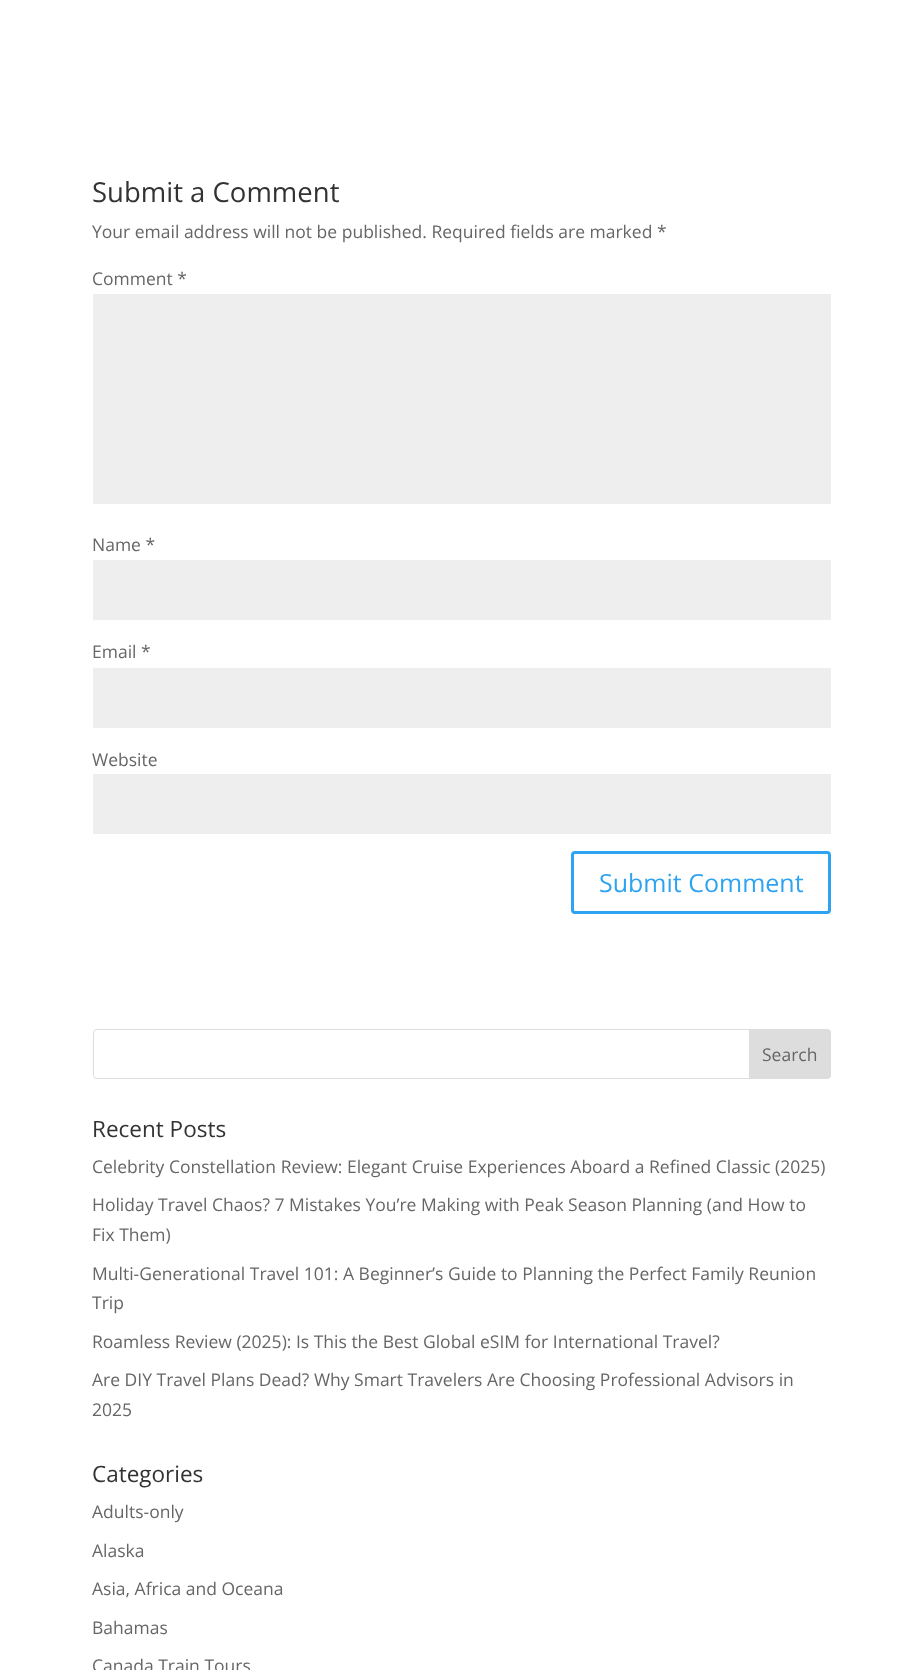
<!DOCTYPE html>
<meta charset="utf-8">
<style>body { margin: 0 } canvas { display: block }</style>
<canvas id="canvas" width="923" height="1670"></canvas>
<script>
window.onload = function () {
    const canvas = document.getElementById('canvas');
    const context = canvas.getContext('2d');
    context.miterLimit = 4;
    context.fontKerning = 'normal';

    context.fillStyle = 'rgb(255, 255, 255)';
    context.fillRect(0, 0, 923, 1670);
    context.fillStyle = 'rgb(238, 238, 238)';
    context.fillRect(93, 294, 738, 210);
    context.fillRect(93, 560, 738, 60);
    context.fillRect(93, 668, 738, 60);
    context.fillRect(93, 774, 738, 60);
    context.beginPath();
    context.roundRect(572.5, 852.5, 257, 60, 2.5);
    context.strokeStyle = 'rgb(46, 163, 242)';
    context.lineWidth = 3;
    context.stroke();
    context.beginPath();
    context.roundRect(93.5, 1029.5, 737, 49, 3.5);
    context.strokeStyle = 'rgb(221, 221, 221)';
    context.lineWidth = 1;
    context.stroke();
    context.fillStyle = 'rgb(221, 221, 221)';
    context.beginPath();
    context.roundRect(749.5, 1029.5, 81, 49, [0, 3.5, 3.5, 0]);
    context.fill();
    context.stroke();
    context.font = '27.5px Open Sans';
    context.fillStyle = 'rgb(51, 51, 51)';
    context.fillText('Submit a Comment', 92, 202);
    context.font = '17.5px Open Sans';
    context.fillStyle = 'rgb(102, 102, 102)';
    context.fillText('Your email address will not be published. Required fields are marked *', 92, 238);
    context.fillText('Comment *', 92, 285);
    context.fillText('Name *', 92, 551);
    context.fillText('Email *', 92, 658);
    context.fillText('Website', 92, 766);
    context.font = '25px Open Sans';
    context.fillStyle = 'rgb(46, 163, 242)';
    context.fillText('Submit Comment', 599, 892);
    context.font = '17.5px Open Sans';
    context.fillStyle = 'rgb(102, 102, 102)';
    context.fillText('Search', 762, 1061);
    context.font = '22.5px Open Sans';
    context.fillStyle = 'rgb(51, 51, 51)';
    context.fillText('Recent Posts', 92, 1137);
    context.font = '17.5px Open Sans';
    context.fillStyle = 'rgb(102, 102, 102)';
    context.fillText('Celebrity Constellation Review: Elegant Cruise Experiences Aboard a Refined Classic (2025)', 92, 1173);
    context.fillText('Holiday Travel Chaos? 7 Mistakes You’re Making with Peak Season Planning (and How to', 92, 1211);
    context.fillText('Fix Them)', 92, 1241);
    context.fillText('Multi-Generational Travel 101: A Beginner’s Guide to Planning the Perfect Family Reunion', 92, 1280);
    context.fillText('Trip', 92, 1309);
    context.fillText('Roamless Review (2025): Is This the Best Global eSIM for International Travel?', 92, 1348);
    context.fillText('Are DIY Travel Plans Dead? Why Smart Travelers Are Choosing Professional Advisors in', 92, 1386);
    context.fillText('2025', 92, 1416);
    context.font = '22.5px Open Sans';
    context.fillStyle = 'rgb(51, 51, 51)';
    context.fillText('Categories', 92, 1482);
    context.font = '17.5px Open Sans';
    context.fillStyle = 'rgb(102, 102, 102)';
    context.fillText('Adults-only', 92, 1518);
    context.fillText('Alaska', 92, 1557);
    context.fillText('Asia, Africa and Oceana', 92, 1595);
    context.fillText('Bahamas', 92, 1634);
    context.fillText('Canada Train Tours', 92, 1672);
};
</script>
